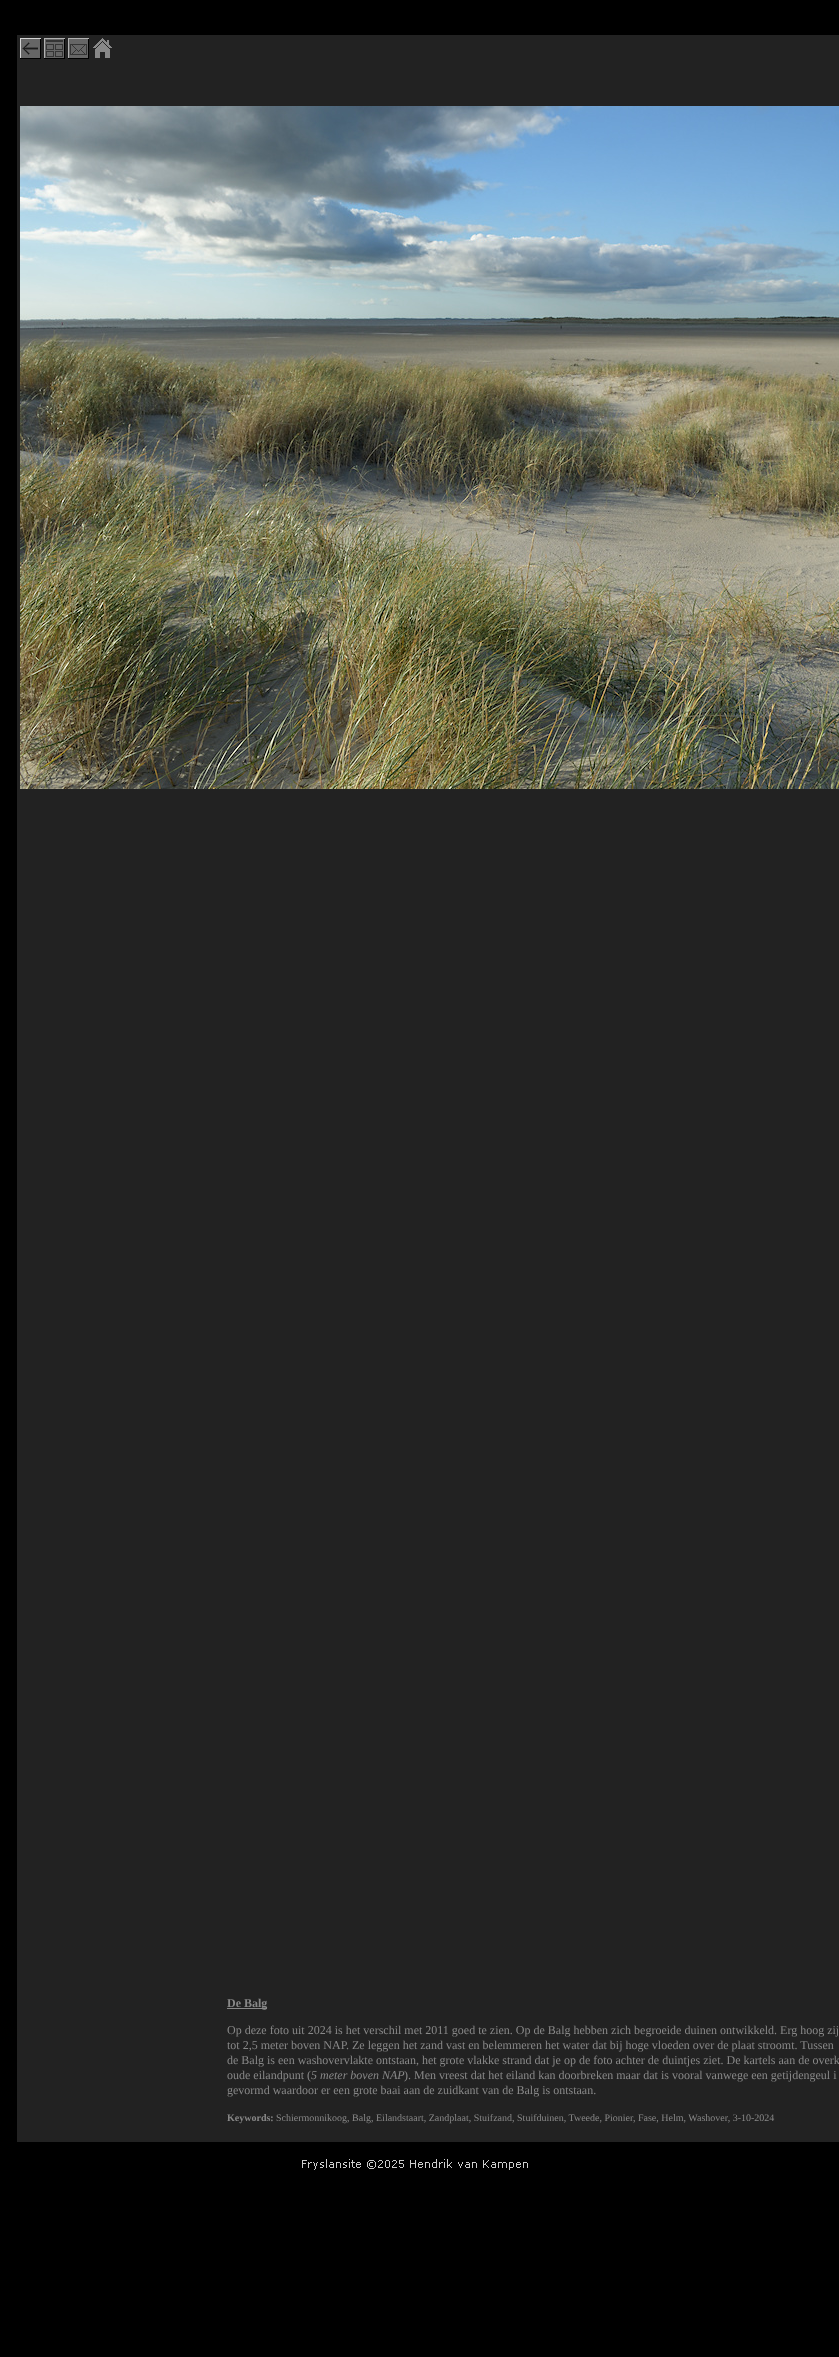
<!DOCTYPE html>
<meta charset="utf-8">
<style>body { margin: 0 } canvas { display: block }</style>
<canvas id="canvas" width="839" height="2357"></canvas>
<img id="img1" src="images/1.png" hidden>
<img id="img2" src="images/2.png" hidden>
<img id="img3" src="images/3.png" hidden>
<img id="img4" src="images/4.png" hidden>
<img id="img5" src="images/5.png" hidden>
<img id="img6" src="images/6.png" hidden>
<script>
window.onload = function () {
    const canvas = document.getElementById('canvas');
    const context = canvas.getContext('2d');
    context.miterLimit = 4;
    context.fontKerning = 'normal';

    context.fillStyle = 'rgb(0, 0, 0)';
    context.fillRect(0, 0, 839, 2357);
    context.fillStyle = 'rgb(34, 34, 34)';
    context.fillRect(17, 35, 822, 2107);
    context.drawImage(document.getElementById('img1'), 20, 38, 21, 21);
    context.drawImage(document.getElementById('img2'), 44, 38, 21, 21);
    context.drawImage(document.getElementById('img3'), 68, 38, 21, 21);
    context.drawImage(document.getElementById('img4'), 93, 38, 19, 20);
    context.drawImage(document.getElementById('img5'), 20, 106, 819, 683);
    context.fillStyle = 'rgb(136, 136, 136)';
    context.fillRect(227, 2008, 40, 1);
    context.drawImage(document.getElementById('img6'), 302, 2159, 226, 11);
    context.font = 'bold 12px Liberation Serif';
    context.fillText('De Balg', 227, 2007);
    context.font = '12px Liberation Serif';
    context.fillText('Op deze foto uit 2024 is het verschil met 2011 goed te zien. Op de Balg hebben zich begroeide duinen ontwikkeld. Erg hoog zij', 227, 2034);
    context.fillText('tot 2,5 meter boven NAP. Ze leggen het zand vast en belemmeren het water dat bij hoge vloeden over de plaat stroomt. Tussen', 227, 2049);
    context.fillText('de Balg is een washovervlakte ontstaan, het grote vlakke strand dat je op de foto achter de duintjes ziet. De kartels aan de overk', 227, 2064);
    context.fillText('oude eilandpunt (', 227, 2079);
    context.font = 'italic 12px Liberation Serif';
    context.fillText('5 meter boven NAP', 311, 2079);
    context.font = '12px Liberation Serif';
    context.fillText('). Men vreest dat het eiland kan doorbreken maar dat is vooral vanwege een getijdengeul i', 404, 2079);
    context.fillText('gevormd waardoor er een grote baai aan de zuidkant van de Balg is ontstaan.', 227, 2094);
    context.font = 'bold 10px Liberation Serif';
    context.fillText('Keywords:', 227, 2121);
    context.font = '10px Liberation Serif';
    context.fillText('Schiermonnikoog, Balg, Eilandstaart, Zandplaat, Stuifzand, Stuifduinen, Tweede, Pionier, Fase, Helm, Washover, 3-10-2024', 276, 2121);
};
</script>
